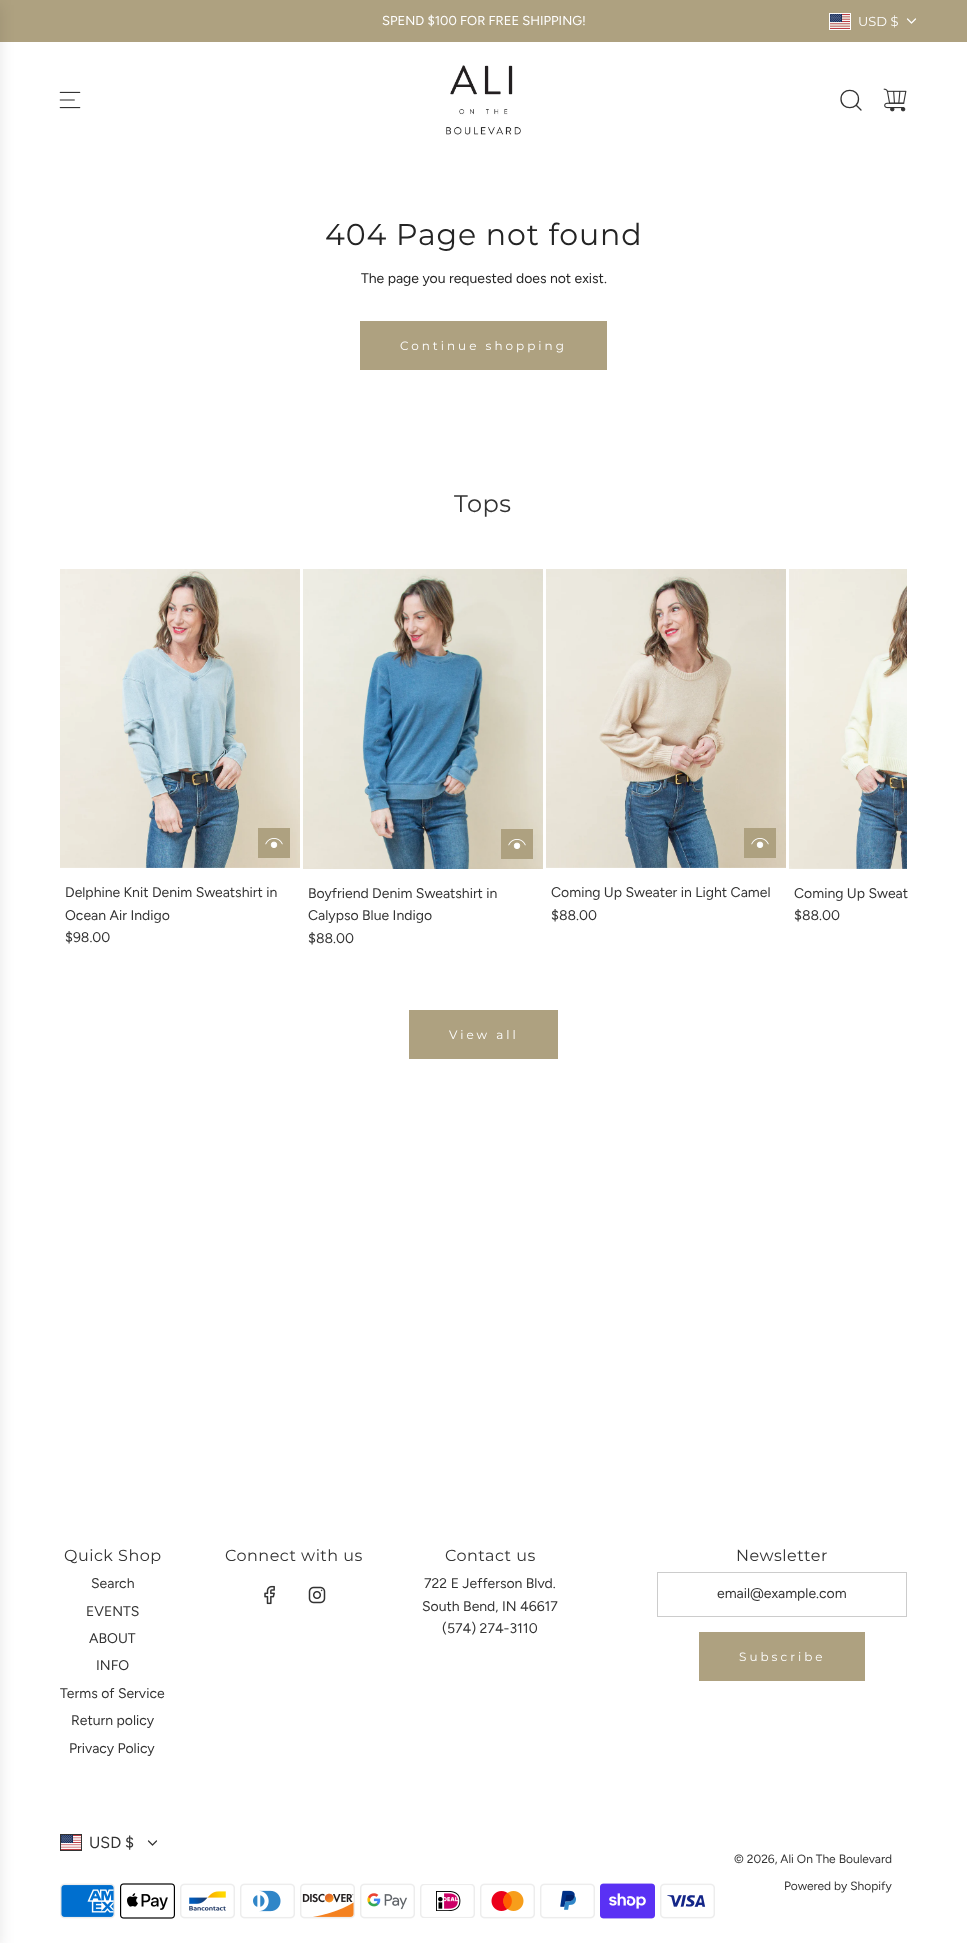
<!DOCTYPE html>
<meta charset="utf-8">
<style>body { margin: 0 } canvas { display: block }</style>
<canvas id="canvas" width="967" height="1943"></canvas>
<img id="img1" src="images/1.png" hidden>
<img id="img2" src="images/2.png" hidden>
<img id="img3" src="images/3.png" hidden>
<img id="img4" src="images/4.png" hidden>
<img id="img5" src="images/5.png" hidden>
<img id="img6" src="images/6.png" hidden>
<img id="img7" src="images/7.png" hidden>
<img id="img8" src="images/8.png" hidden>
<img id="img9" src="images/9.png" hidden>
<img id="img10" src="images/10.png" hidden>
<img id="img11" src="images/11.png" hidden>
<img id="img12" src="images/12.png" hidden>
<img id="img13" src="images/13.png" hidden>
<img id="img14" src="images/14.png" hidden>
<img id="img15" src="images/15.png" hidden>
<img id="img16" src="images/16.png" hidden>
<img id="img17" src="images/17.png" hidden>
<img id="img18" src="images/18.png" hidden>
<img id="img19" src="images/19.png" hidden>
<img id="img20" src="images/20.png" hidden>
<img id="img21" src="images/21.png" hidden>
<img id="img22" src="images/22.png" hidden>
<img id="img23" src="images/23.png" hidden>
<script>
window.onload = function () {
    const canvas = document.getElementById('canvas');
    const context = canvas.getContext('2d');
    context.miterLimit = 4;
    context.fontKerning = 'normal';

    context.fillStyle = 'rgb(255, 255, 255)';
    context.fillRect(0, 0, 967, 1943);
    context.fillStyle = 'rgb(174, 161, 128)';
    context.fillRect(0, 0, 967, 42);
    context.fillStyle = 'rgba(0, 0, 0, 0.1)';
    context.filter = 'blur(7.5px)';
    context.beginPath();
    context.rect(-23, 5, 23, 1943);
    context.fill();
    context.filter = 'none';
    context.drawImage(document.getElementById('img1'), 59, 91, 22, 18);
    context.drawImage(document.getElementById('img2'), 446, 65, 75, 70);
    context.beginPath();
    context.moveTo(856.5, 105.5);
    context.lineTo(861, 110);
    context.moveTo(841, 99);
    context.bezierCurveTo(841, 110.5, 858.5, 110.5, 858.5, 99);
    context.bezierCurveTo(858.5, 87.5, 841, 87.5, 841, 99);
    context.closePath();
    context.strokeStyle = 'rgb(51, 51, 51)';
    context.lineWidth = 1.3;
    context.lineCap = 'round';
    context.lineJoin = 'round';
    context.stroke();
    context.drawImage(document.getElementById('img3'), 883, 88, 24, 24);
    context.strokeStyle = 'rgb(255, 255, 255)';
    context.lineWidth = 1;
    context.lineJoin = 'miter';
    context.strokeRect(829.5, 13.5, 21, 16);
    context.drawImage(document.getElementById('img4'), 830, 14, 20, 15);
    context.beginPath();
    context.moveTo(907.5, 19);
    context.lineTo(911.5, 23);
    context.lineTo(915.5, 19);
    context.lineWidth = 1.2;
    context.lineJoin = 'round';
    context.stroke();
    context.fillStyle = 'rgb(174, 161, 128)';
    context.fillRect(360, 321, 247, 49);
    context.drawImage(document.getElementById('img5'), 60, 569, 240, 299);
    context.fillRect(258, 828, 32, 30);
    context.drawImage(document.getElementById('img6'), 265, 838, 18, 10);
    context.drawImage(document.getElementById('img7'), 303, 569, 240, 300);
    context.fillRect(501, 829, 32, 30);
    context.drawImage(document.getElementById('img6'), 508, 839, 18, 10);
    context.drawImage(document.getElementById('img8'), 546, 569, 240, 299);
    context.fillRect(744, 828, 32, 30);
    context.drawImage(document.getElementById('img6'), 751, 838, 18, 10);
    context.drawImage(document.getElementById('img9'), 789, 569, 118, 300);
    context.fillRect(409, 1010, 149, 49);
    context.drawImage(document.getElementById('img10'), 264, 1585, 11, 20);
    context.drawImage(document.getElementById('img11'), 308, 1586, 18, 18);
    context.strokeStyle = 'rgb(204, 204, 204)';
    context.lineWidth = 1;
    context.lineJoin = 'miter';
    context.strokeRect(657.5, 1572.5, 249, 44);
    context.fillRect(699, 1632, 166, 49);
    context.strokeStyle = 'rgb(51, 51, 51)';
    context.strokeRect(60.5, 1834.5, 21, 16);
    context.drawImage(document.getElementById('img12'), 61, 1835, 20, 15);
    context.beginPath();
    context.moveTo(148.5, 1841);
    context.lineTo(152.5, 1845);
    context.lineTo(156.5, 1841);
    context.lineWidth = 1.2;
    context.lineJoin = 'round';
    context.stroke();
    context.drawImage(document.getElementById('img13'), 60, 1883, 55, 36);
    context.drawImage(document.getElementById('img14'), 120, 1883, 55, 36);
    context.drawImage(document.getElementById('img15'), 180, 1883, 55, 36);
    context.drawImage(document.getElementById('img16'), 240, 1883, 55, 36);
    context.drawImage(document.getElementById('img17'), 300, 1883, 55, 36);
    context.drawImage(document.getElementById('img18'), 360, 1883, 55, 36);
    context.drawImage(document.getElementById('img19'), 420, 1884, 55, 34);
    context.drawImage(document.getElementById('img20'), 480, 1883, 55, 36);
    context.drawImage(document.getElementById('img21'), 540, 1883, 55, 36);
    context.drawImage(document.getElementById('img22'), 600, 1883, 55, 36);
    context.drawImage(document.getElementById('img23'), 660, 1883, 55, 36);
    context.font = '13px Figtree';
    context.fillStyle = 'rgb(255, 255, 255)';
    context.fillText('SPEND $100 FOR FREE SHIPPING!', 382, 25);
    context.font = '13px Montserrat';
    context.fillText('USD $', 858, 26);
    context.letterSpacing = '0.9px';
    context.font = '30px Montserrat';
    context.fillStyle = 'rgb(36, 36, 36)';
    context.fillText('404 Page not found', 325, 245);
    context.letterSpacing = '0px';
    context.font = '14px Figtree';
    context.fillText('The page you requested does not exist.', 361, 283);
    context.letterSpacing = '3px';
    context.font = '12px Montserrat';
    context.fillStyle = 'rgb(255, 255, 255)';
    context.fillText('Continue shopping', 400, 350);
    context.letterSpacing = '0.5px';
    context.font = '24px Montserrat';
    context.fillStyle = 'rgb(51, 51, 51)';
    context.fillText('Tops', 454, 512);
    context.letterSpacing = '0px';
    context.font = '14px Figtree';
    context.fillText('Delphine Knit Denim Sweatshirt in', 65, 897);
    context.fillText('Ocean Air Indigo', 65, 920);
    context.fillText('$98.00', 65, 942);
    context.fillText('Boyfriend Denim Sweatshirt in', 308, 898);
    context.fillText('Calypso Blue Indigo', 308, 920);
    context.fillText('$88.00', 308, 943);
    context.fillText('Coming Up Sweater in Light Camel', 551, 897);
    context.fillText('$88.00', 551, 920);
    context.fillText('Coming Up Sweat', 794, 898);
    context.fillText('$88.00', 794, 920);
    context.letterSpacing = '3px';
    context.font = '12px Montserrat';
    context.fillStyle = 'rgb(255, 255, 255)';
    context.fillText('View all', 449, 1039);
    context.letterSpacing = '0.5px';
    context.font = '16px Montserrat';
    context.fillStyle = 'rgb(51, 51, 51)';
    context.fillText('Quick Shop', 64, 1561);
    context.letterSpacing = '0px';
    context.font = '14px Figtree';
    context.fillText('Search', 91, 1588);
    context.fillText('EVENTS', 86, 1616);
    context.fillText('ABOUT', 89, 1643);
    context.fillText('INFO', 96, 1670);
    context.fillText('Terms of Service', 60, 1698);
    context.fillText('Return policy', 71, 1725);
    context.fillText('Privacy Policy', 69, 1753);
    context.letterSpacing = '0.5px';
    context.font = '16px Montserrat';
    context.fillText('Connect with us', 225, 1561);
    context.fillText('Contact us', 445, 1561);
    context.letterSpacing = '0px';
    context.font = '14px Figtree';
    context.fillText('722 E Jefferson Blvd.', 424, 1588);
    context.fillText('South Bend, IN 46617', 422, 1611);
    context.fillText('(574) 274-3110', 442, 1633);
    context.letterSpacing = '0.5px';
    context.font = '16px Montserrat';
    context.fillText('Newsletter', 736, 1561);
    context.letterSpacing = '0px';
    context.font = '14px Figtree';
    context.fillText('email@example.com', 717, 1598);
    context.letterSpacing = '3px';
    context.font = '12px Montserrat';
    context.fillStyle = 'rgb(255, 255, 255)';
    context.fillText('Subscribe', 739, 1661);
    context.letterSpacing = '0px';
    context.font = '16px Figtree';
    context.fillStyle = 'rgb(51, 51, 51)';
    context.fillText('USD $', 89, 1848);
    context.font = '12px Figtree';
    context.fillText('© 2026, Ali On The Boulevard', 734, 1863);
    context.fillText('Powered by Shopify', 784, 1890);
};
</script>
